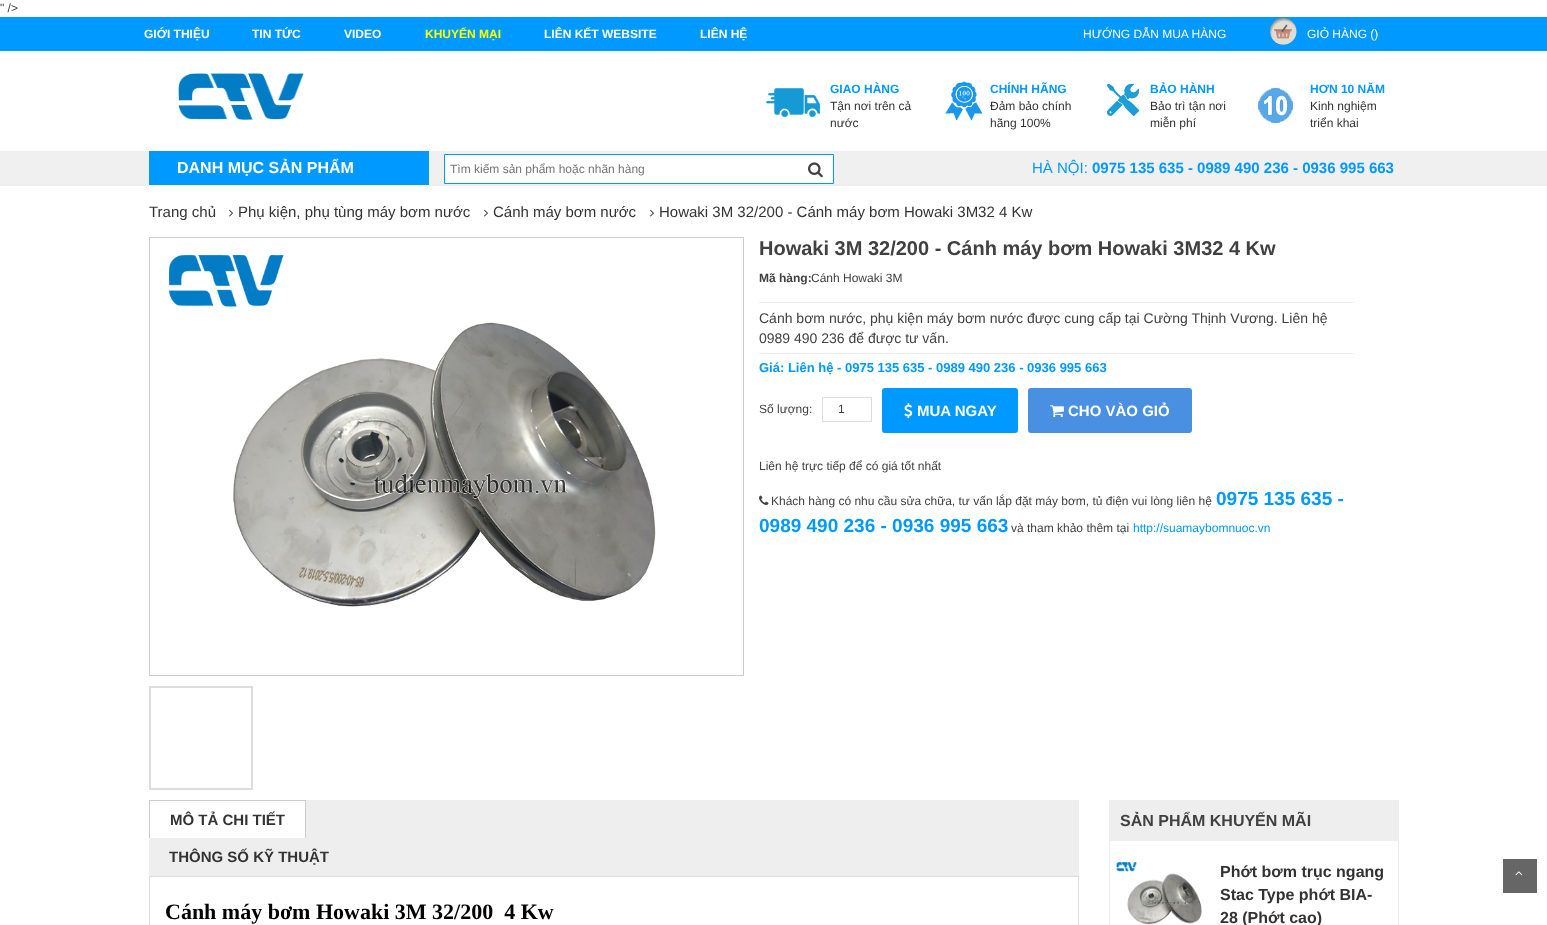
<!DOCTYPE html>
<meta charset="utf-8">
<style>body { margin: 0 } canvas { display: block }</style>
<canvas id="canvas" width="1547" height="925"></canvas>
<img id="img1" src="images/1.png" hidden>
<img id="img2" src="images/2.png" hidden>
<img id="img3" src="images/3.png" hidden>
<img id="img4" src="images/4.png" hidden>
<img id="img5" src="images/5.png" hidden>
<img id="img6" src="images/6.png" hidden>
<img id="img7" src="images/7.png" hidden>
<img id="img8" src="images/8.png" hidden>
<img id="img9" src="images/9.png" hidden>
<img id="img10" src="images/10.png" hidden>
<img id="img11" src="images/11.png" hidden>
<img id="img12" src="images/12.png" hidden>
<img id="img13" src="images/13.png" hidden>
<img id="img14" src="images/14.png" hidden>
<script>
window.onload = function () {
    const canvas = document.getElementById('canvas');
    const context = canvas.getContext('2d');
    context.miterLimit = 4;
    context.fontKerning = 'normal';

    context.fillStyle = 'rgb(255, 255, 255)';
    context.fillRect(0, 0, 1547, 925);
    context.fillStyle = 'rgb(0, 153, 255)';
    context.fillRect(0, 17, 1547, 34);
    context.drawImage(document.getElementById('img1'), 1270, 18, 27, 27);
    context.drawImage(document.getElementById('img2'), 178, 73, 126, 47);
    context.drawImage(document.getElementById('img3'), 766, 88, 54, 29);
    context.drawImage(document.getElementById('img4'), 945, 81, 38, 40);
    context.drawImage(document.getElementById('img5'), 1107, 84, 32, 32);
    context.drawImage(document.getElementById('img6'), 1258, 88, 35, 35);
    context.fillStyle = 'rgb(240, 240, 240)';
    context.fillRect(0, 151, 1547, 35);
    context.fillStyle = 'rgb(0, 153, 255)';
    context.fillRect(149, 151, 280, 34);
    context.fillStyle = 'rgb(255, 255, 255)';
    context.fillRect(149, 185, 280, 1);
    context.beginPath();
    context.rect(444.5, 154.5, 389, 29);
    context.fill();
    context.strokeStyle = 'rgb(0, 153, 255)';
    context.stroke();
    context.drawImage(document.getElementById('img7'), 808, 162, 15, 16);
    context.drawImage(document.getElementById('img8'), 229, 209, 4, 8);
    context.drawImage(document.getElementById('img8'), 484, 209, 4, 8);
    context.drawImage(document.getElementById('img8'), 650, 209, 4, 8);
    context.strokeStyle = 'rgb(204, 204, 204)';
    context.strokeRect(149.5, 237.5, 594, 438);
    context.drawImage(document.getElementById('img9'), 169, 255, 487, 352);
    context.strokeStyle = 'rgb(221, 221, 221)';
    context.lineWidth = 2;
    context.strokeRect(150, 687, 102, 102);
    context.fillStyle = 'rgb(238, 238, 238)';
    context.fillRect(759, 302, 595, 1);
    context.fillRect(759, 353, 595, 1);
    context.lineWidth = 1;
    context.strokeRect(822.5, 397.5, 49, 24);
    context.fillStyle = 'rgb(0, 153, 255)';
    context.beginPath();
    context.roundRect(882, 388, 136, 45, 3);
    context.fill();
    context.drawImage(document.getElementById('img10'), 904, 403, 9, 16);
    context.fillStyle = 'rgb(74, 144, 226)';
    context.beginPath();
    context.roundRect(1028, 388, 164, 45, 3);
    context.fill();
    context.drawImage(document.getElementById('img11'), 1050, 405, 14, 13);
    context.drawImage(document.getElementById('img12'), 759, 495, 10, 10);
    context.fillStyle = 'rgb(238, 238, 238)';
    context.fillRect(306, 800, 773, 76);
    context.fillStyle = 'rgb(204, 204, 204)';
    context.fillRect(149, 800, 157, 1);
    context.fillRect(305, 800, 1, 39);
    context.fillRect(149, 800, 1, 39);
    context.fillStyle = 'rgb(238, 238, 238)';
    context.fillRect(149, 838, 157, 38);
    context.strokeRect(149.5, 876.5, 929, 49);
    context.strokeStyle = 'rgb(238, 238, 238)';
    context.strokeRect(1109.5, 800.5, 289, 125);
    context.fillRect(1110, 801, 288, 40);
    context.drawImage(document.getElementById('img13'), 1116, 862, 86, 63);
    context.fillStyle = 'rgb(102, 102, 102)';
    context.fillRect(1503, 859, 34, 34);
    context.drawImage(document.getElementById('img14'), 1515, 871, 8, 5);
    context.font = '12px Liberation Sans';
    context.fillStyle = 'rgb(65, 65, 65)';
    context.fillText('" />', 0, 12);
    context.font = 'bold 12px Liberation Sans';
    context.fillStyle = 'rgb(255, 255, 255)';
    context.fillText('GIỚI THIỆU', 144, 38);
    context.fillText('TIN TỨC', 252, 38);
    context.fillText('VIDEO', 344, 38);
    context.fillStyle = 'rgb(255, 255, 0)';
    context.fillText('KHUYẾN MẠI', 425, 38);
    context.fillStyle = 'rgb(255, 255, 255)';
    context.fillText('LIÊN KẾT WEBSITE', 544, 38);
    context.fillText('LIÊN HỆ', 700, 38);
    context.font = '12px Liberation Sans';
    context.fillText('HƯỚNG DẪN MUA HÀNG', 1083, 38);
    context.fillText('GIỎ HÀNG ()', 1307, 38);
    context.font = 'bold 12px Liberation Sans';
    context.fillStyle = 'rgb(0, 153, 255)';
    context.fillText('GIAO HÀNG', 830, 93);
    context.font = '12px Liberation Sans';
    context.fillStyle = 'rgb(51, 51, 51)';
    context.fillText('Tận nơi trên cả', 830, 110);
    context.fillText('nước', 830, 127);
    context.font = 'bold 12px Liberation Sans';
    context.fillStyle = 'rgb(0, 153, 255)';
    context.fillText('CHÍNH HÃNG', 990, 93);
    context.font = '12px Liberation Sans';
    context.fillStyle = 'rgb(51, 51, 51)';
    context.fillText('Đảm bảo chính', 990, 110);
    context.fillText('hãng 100%', 990, 127);
    context.font = 'bold 12px Liberation Sans';
    context.fillStyle = 'rgb(0, 153, 255)';
    context.fillText('BẢO HÀNH', 1150, 93);
    context.font = '12px Liberation Sans';
    context.fillStyle = 'rgb(51, 51, 51)';
    context.fillText('Bảo trì tận nơi', 1150, 110);
    context.fillText('miễn phí', 1150, 127);
    context.font = 'bold 12px Liberation Sans';
    context.fillStyle = 'rgb(0, 153, 255)';
    context.fillText('HƠN 10 NĂM', 1310, 93);
    context.font = '12px Liberation Sans';
    context.fillStyle = 'rgb(51, 51, 51)';
    context.fillText('Kinh nghiệm', 1310, 110);
    context.fillText('triển khai', 1310, 127);
    context.font = 'bold 16px Liberation Sans';
    context.fillStyle = 'rgb(255, 255, 255)';
    context.fillText('DANH MỤC SẢN PHẨM', 177, 173);
    context.font = '12px Liberation Sans';
    context.fillStyle = 'rgb(117, 117, 117)';
    context.fillText('Tìm kiếm sản phẩm hoặc nhãn hàng', 450, 173);
    context.font = '15px Liberation Sans';
    context.fillStyle = 'rgb(0, 153, 255)';
    context.fillText('HÀ NỘI:', 1032, 173);
    context.font = 'bold 15px Liberation Sans';
    context.fillText('0975 135 635 - 0989 490 236 - 0936 995 663', 1092, 173);
    context.font = '15px Liberation Sans';
    context.fillStyle = 'rgb(51, 51, 51)';
    context.fillText('Trang chủ', 149, 217);
    context.fillText('Phụ kiện, phụ tùng máy bơm nước', 238, 217);
    context.fillText('Cánh máy bơm nước', 493, 217);
    context.fillText('Howaki 3M 32/200 - Cánh máy bơm Howaki 3M32 4 Kw', 659, 217);
    context.font = 'bold 20px Liberation Sans';
    context.fillStyle = 'rgb(65, 65, 65)';
    context.fillText('Howaki 3M 32/200 - Cánh máy bơm Howaki 3M32 4 Kw', 759, 255);
    context.font = 'bold 12px Liberation Sans';
    context.fillText('Mã hàng:', 759, 282);
    context.font = '12px Liberation Sans';
    context.fillText('Cánh Howaki 3M', 811, 282);
    context.font = '14px Liberation Sans';
    context.fillText('Cánh bơm nước, phụ kiện máy bơm nước được cung cấp tại Cường Thịnh Vương. Liên hệ', 759, 323);
    context.fillText('0989 490 236 để được tư vấn.', 759, 343);
    context.font = 'bold 13px Liberation Sans';
    context.fillStyle = 'rgb(0, 153, 255)';
    context.fillText('Giá: Liên hệ - 0975 135 635 - 0989 490 236 - 0936 995 663', 759, 372);
    context.font = '12px Liberation Sans';
    context.fillStyle = 'rgb(65, 65, 65)';
    context.fillText('Số lượng:', 759, 413);
    context.fillText('1', 838, 413);
    context.font = 'bold 15px Liberation Sans';
    context.fillStyle = 'rgb(255, 255, 255)';
    context.fillText('MUA NGAY', 917, 416);
    context.fillText('CHO VÀO GIỎ', 1068, 416);
    context.font = '12px Liberation Sans';
    context.fillStyle = 'rgb(65, 65, 65)';
    context.fillText('Liên hệ trực tiếp để có giá tốt nhất', 759, 470);
    context.fillText('Khách hàng có nhu cầu sửa chữa, tư vấn lắp đặt máy bơm, tủ điện vui lòng liên hệ', 771, 505);
    context.font = 'bold 19px Liberation Sans';
    context.fillStyle = 'rgb(0, 153, 255)';
    context.fillText('0975 135 635 -', 1216, 505);
    context.fillText('0989 490 236 - 0936 995 663', 759, 532);
    context.font = '12px Liberation Sans';
    context.fillStyle = 'rgb(65, 65, 65)';
    context.fillText('và tham khảo thêm tại', 1011, 532);
    context.fillStyle = 'rgb(0, 153, 255)';
    context.fillText('http://suamaybomnuoc.vn', 1133, 532);
    context.font = 'bold 15px Liberation Sans';
    context.fillStyle = 'rgb(51, 51, 51)';
    context.fillText('MÔ TẢ CHI TIẾT', 170, 825);
    context.fillText('THÔNG SỐ KỸ THUẬT', 169, 862);
    context.font = 'bold 22px Liberation Serif';
    context.fillStyle = 'rgb(0, 0, 0)';
    context.fillText('Cánh máy bơm Howaki 3M 32/200  4 Kw', 165, 919);
    context.font = 'bold 16px Liberation Sans';
    context.fillStyle = 'rgb(65, 65, 65)';
    context.fillText('SẢN PHẨM KHUYẾN MÃI', 1120, 826);
    context.fillStyle = 'rgb(51, 51, 51)';
    context.fillText('Phớt bơm trục ngang', 1220, 877);
    context.fillText('Stac Type phớt BIA-', 1220, 900);
    context.fillText('28 (Phớt cao)', 1220, 923);
};
</script>
